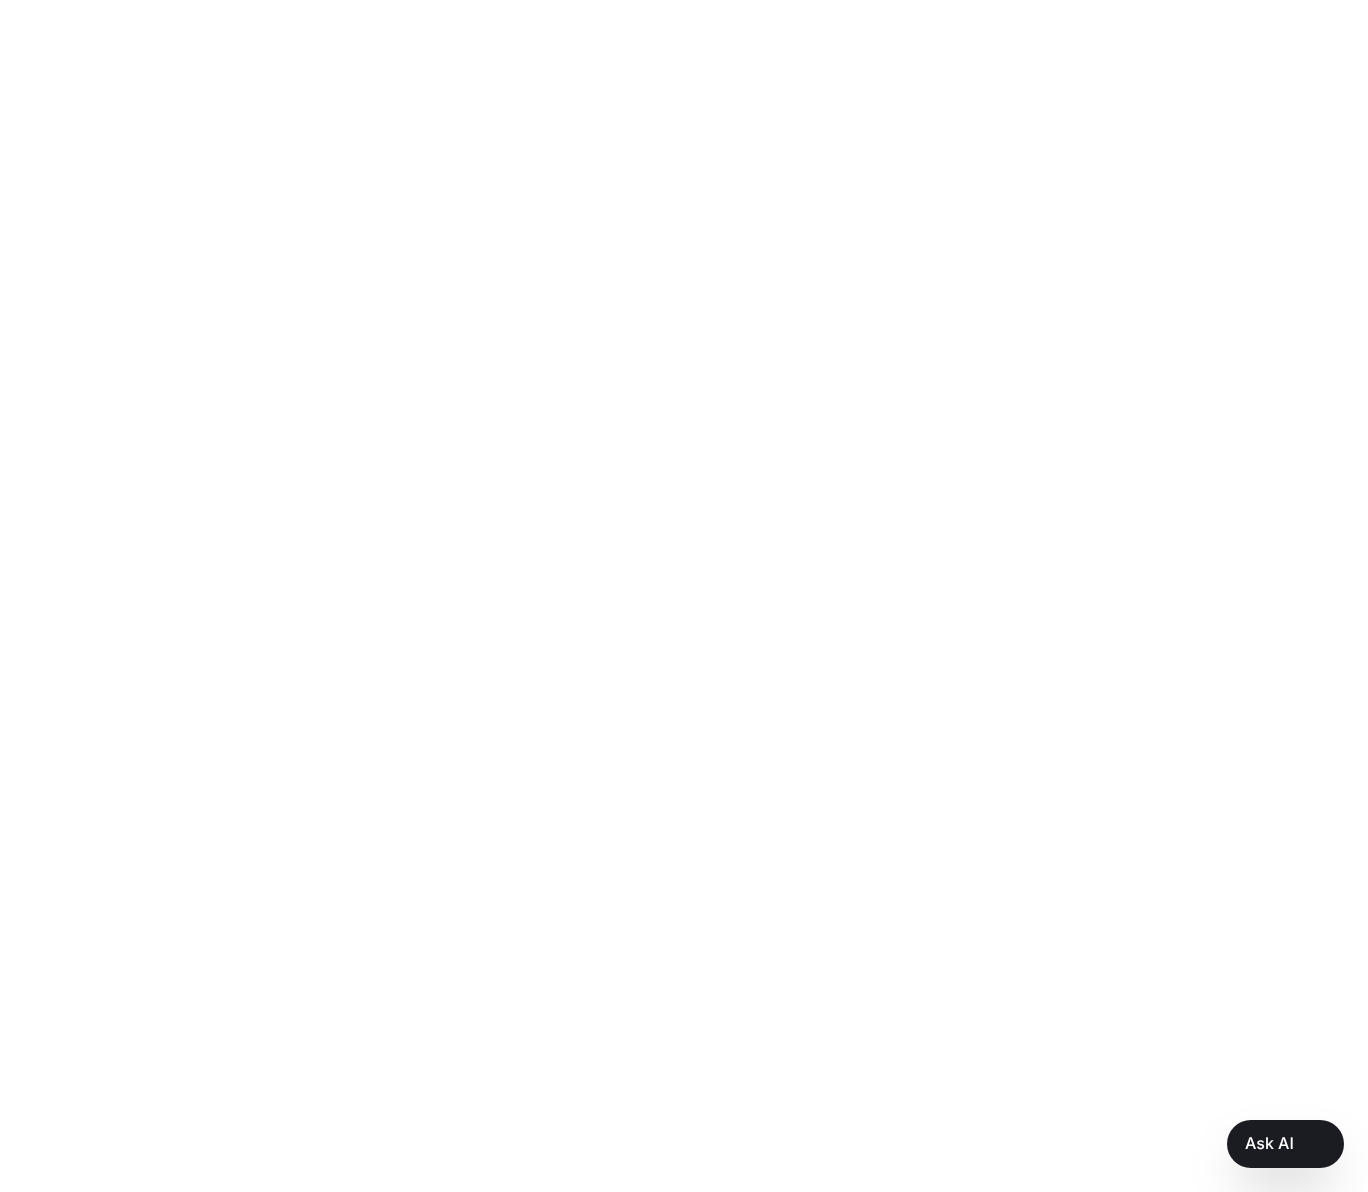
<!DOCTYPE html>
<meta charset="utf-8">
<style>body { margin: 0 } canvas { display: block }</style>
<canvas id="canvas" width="1368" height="1192"></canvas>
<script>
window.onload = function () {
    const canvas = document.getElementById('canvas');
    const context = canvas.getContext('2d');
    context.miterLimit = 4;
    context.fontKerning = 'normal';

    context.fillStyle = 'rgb(255, 255, 255)';
    context.fillRect(0, 0, 1368, 1192);
    context.fillStyle = 'rgba(0, 0, 0, 0.25)';
    context.filter = 'blur(25px)';
    context.beginPath();
    context.roundRect(1239, 1157, 93, 24, 12);
    context.fill();
    context.filter = 'none';
    context.fillStyle = 'rgb(27, 27, 34)';
    context.beginPath();
    context.roundRect(1227, 1120, 117, 48, 24);
    context.fill();
    context.font = '500 16px Inter';
    context.fillStyle = 'rgb(255, 255, 255)';
    context.fillText('Ask AI', 1245, 1149);
};
</script>
